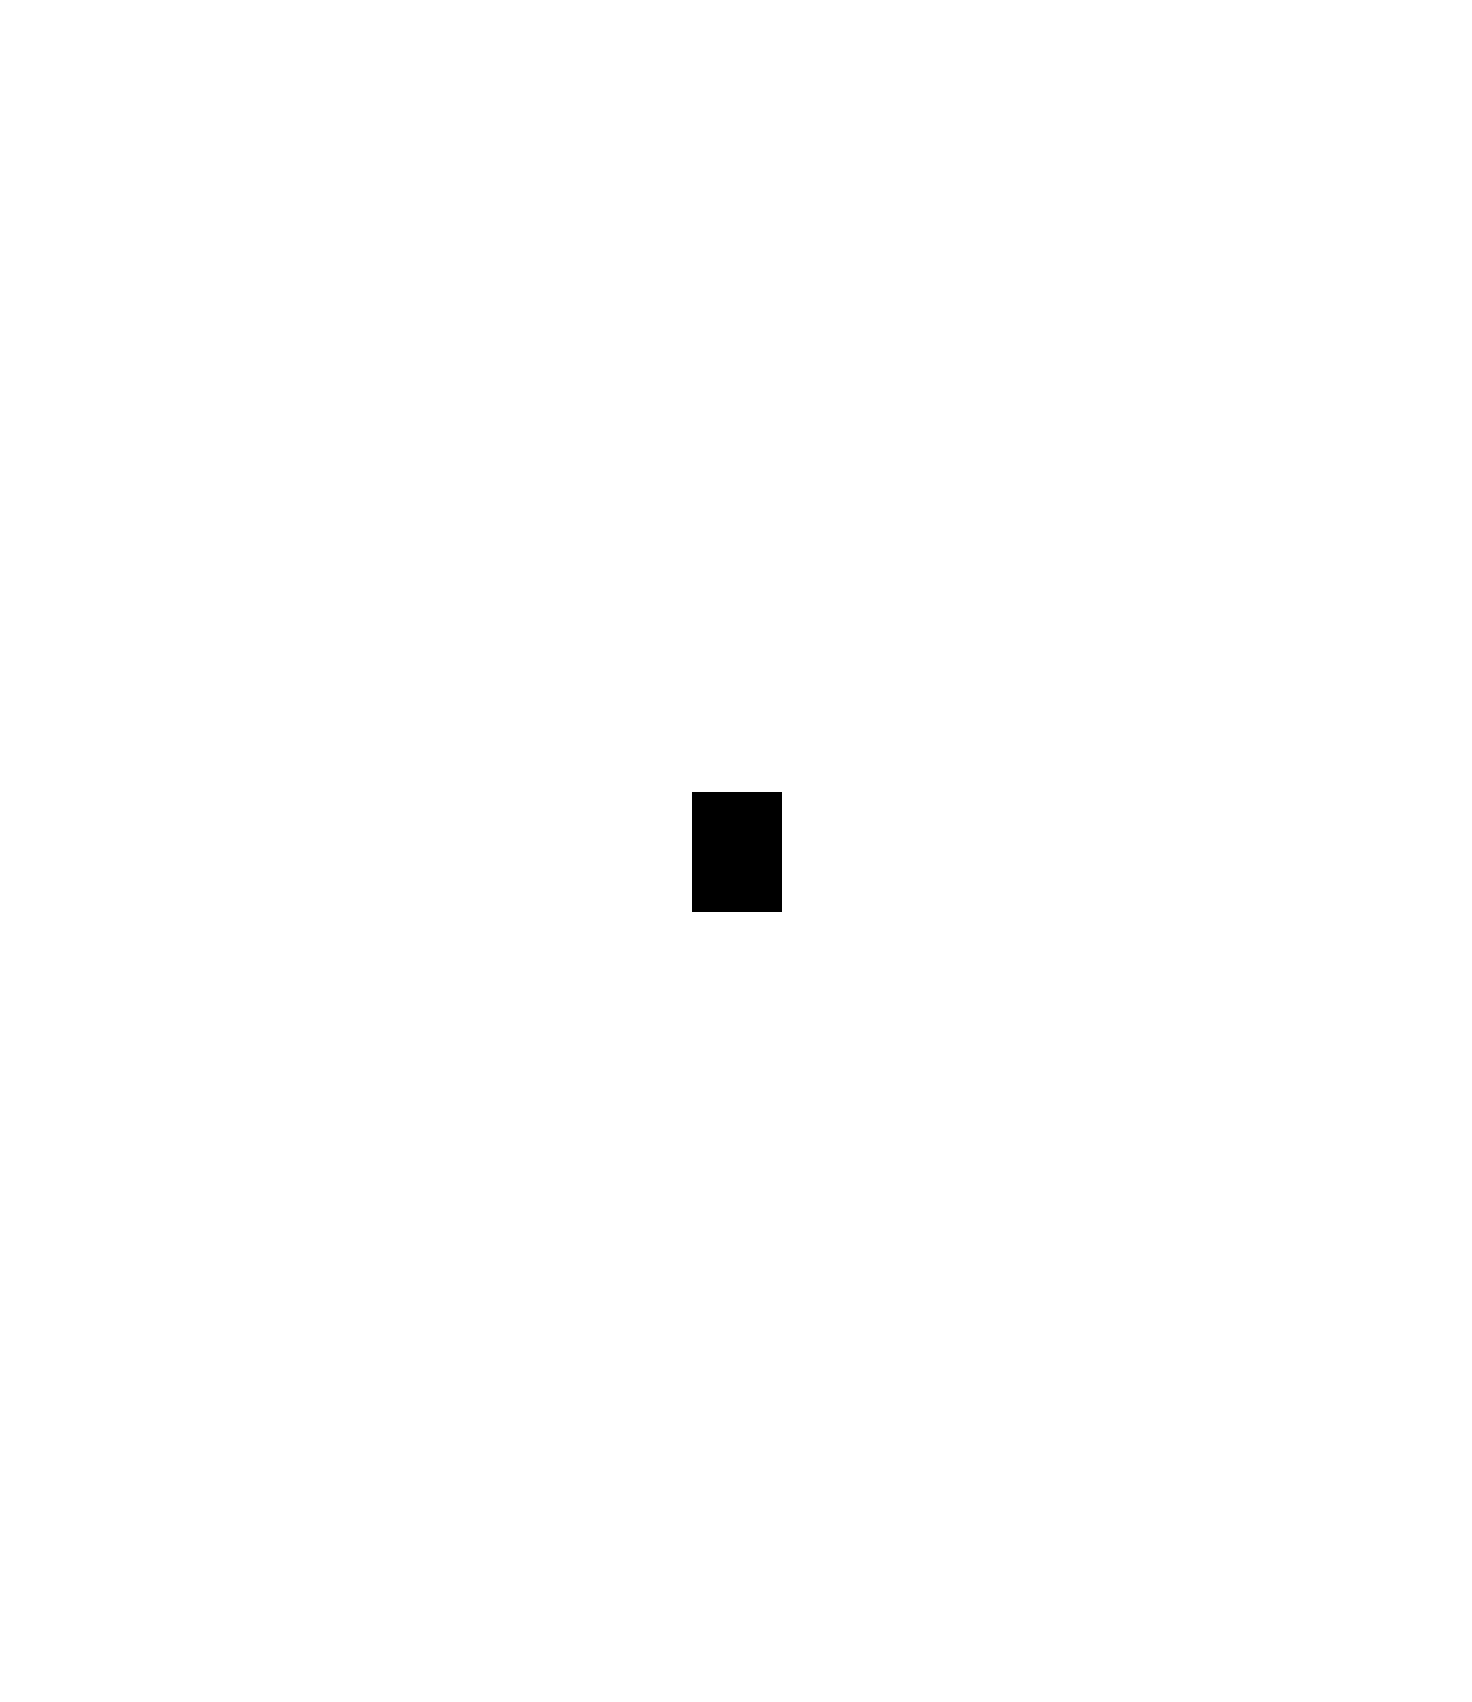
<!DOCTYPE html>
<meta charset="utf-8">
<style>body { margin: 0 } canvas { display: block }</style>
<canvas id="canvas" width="1472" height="1702"></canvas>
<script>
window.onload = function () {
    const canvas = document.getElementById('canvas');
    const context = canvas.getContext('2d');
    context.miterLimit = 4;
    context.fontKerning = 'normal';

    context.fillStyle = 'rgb(255, 255, 255)';
    context.fillRect(0, 0, 1472, 1702);
    context.fillStyle = 'rgb(0, 0, 0)';
    context.fillRect(692, 792, 90, 120);
};
</script>
